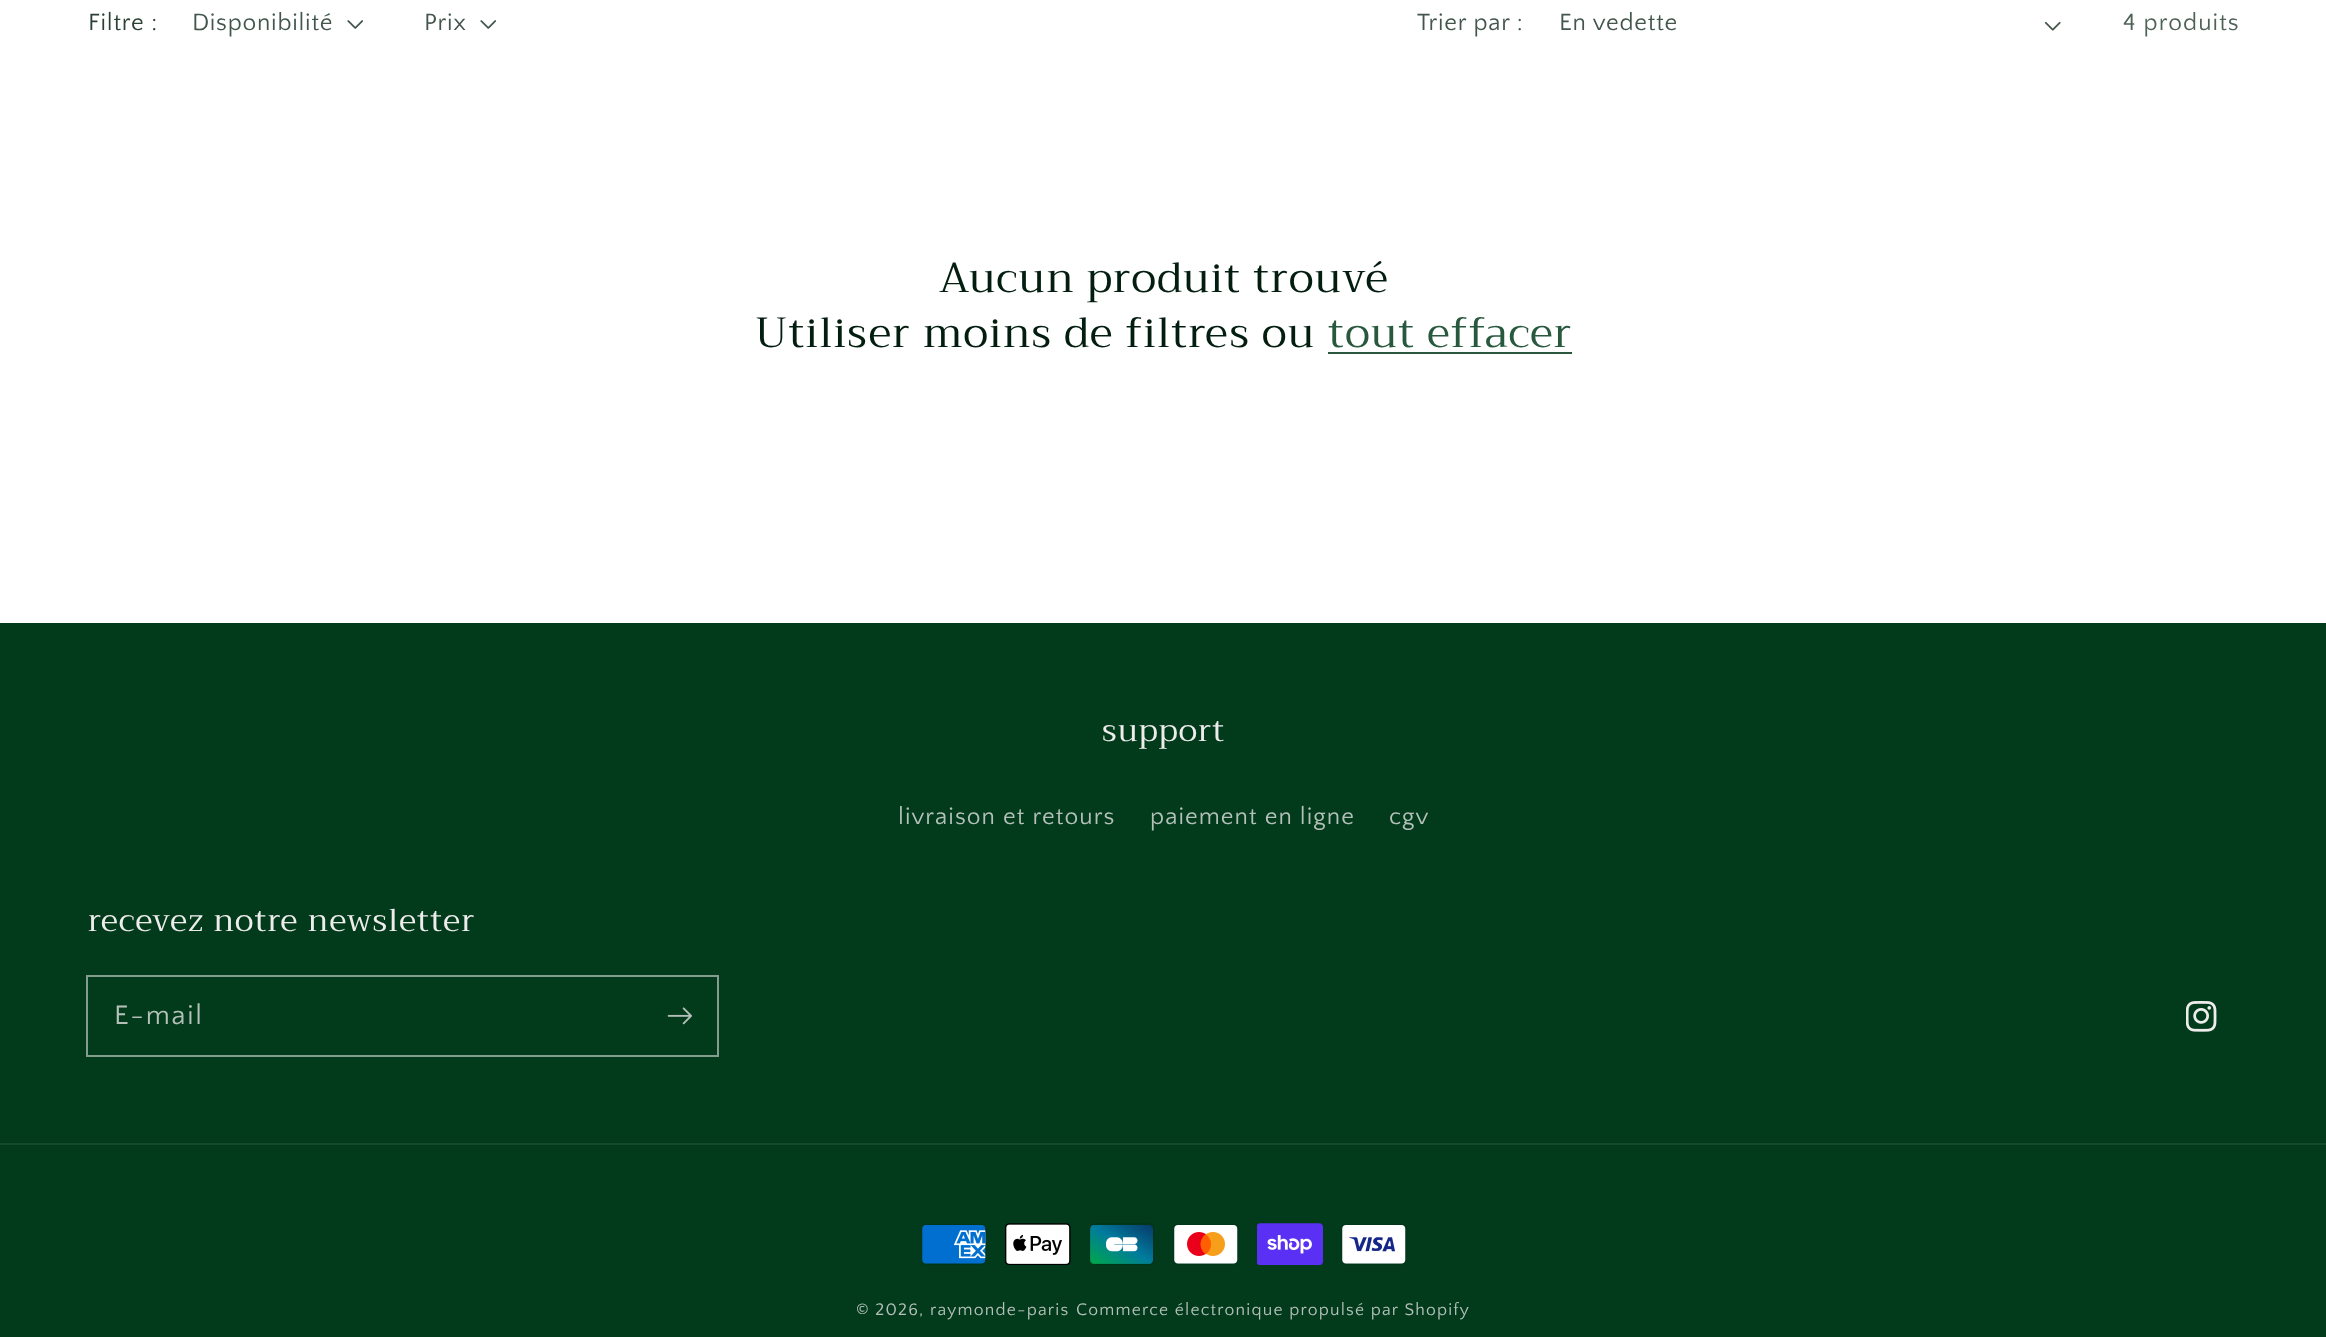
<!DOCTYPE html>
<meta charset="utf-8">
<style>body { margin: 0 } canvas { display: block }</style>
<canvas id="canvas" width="2326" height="1337"></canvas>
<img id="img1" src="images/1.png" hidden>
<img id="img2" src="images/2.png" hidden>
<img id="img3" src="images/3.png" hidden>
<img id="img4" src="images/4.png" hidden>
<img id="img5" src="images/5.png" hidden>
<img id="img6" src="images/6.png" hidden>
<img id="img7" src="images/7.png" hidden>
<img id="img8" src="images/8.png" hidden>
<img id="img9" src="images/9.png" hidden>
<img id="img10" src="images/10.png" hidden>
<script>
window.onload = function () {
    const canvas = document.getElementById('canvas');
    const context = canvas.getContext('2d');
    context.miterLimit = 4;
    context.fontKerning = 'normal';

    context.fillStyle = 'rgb(255, 255, 255)';
    context.fillRect(0, 0, 2326, 1337);
    context.drawImage(document.getElementById('img1'), 347, 20, 16, 9);
    context.drawImage(document.getElementById('img1'), 480, 20, 16, 9);
    context.drawImage(document.getElementById('img2'), 2044, 21, 17, 10);
    context.fillStyle = 'rgb(40, 88, 62)';
    context.fillRect(1328, 352, 244, 2);
    context.fillStyle = 'rgb(2, 59, 28)';
    context.fillRect(0, 623, 2326, 714);
    context.strokeStyle = 'rgb(132, 156, 142)';
    context.lineWidth = 2;
    context.strokeRect(87, 976, 631, 80);
    context.drawImage(document.getElementById('img3'), 667, 1007, 25, 18);
    context.drawImage(document.getElementById('img4'), 2186, 1001, 31, 31);
    context.fillStyle = 'rgb(21, 73, 45)';
    context.fillRect(0, 1143, 2326, 2);
    context.drawImage(document.getElementById('img5'), 921, 1224, 66, 41);
    context.drawImage(document.getElementById('img6'), 1005, 1223, 66, 42);
    context.drawImage(document.getElementById('img7'), 1089, 1223, 66, 42);
    context.drawImage(document.getElementById('img8'), 1173, 1224, 66, 41);
    context.drawImage(document.getElementById('img9'), 1257, 1223, 66, 42);
    context.drawImage(document.getElementById('img10'), 1341, 1224, 66, 41);
    context.letterSpacing = '0.75px';
    context.font = '24.5px Quattrocento Sans';
    context.fillStyle = 'rgb(41, 64, 52)';
    context.fillText('Filtre :', 88, 30);
    context.fillStyle = 'rgb(66, 86, 76)';
    context.fillText('Disponibilité', 192, 30);
    context.fillText('Prix', 424, 30);
    context.fillText('Trier par :', 1417, 30);
    context.fillText('En vedette', 1559, 30);
    context.letterSpacing = '1.05px';
    context.fillStyle = 'rgb(79, 98, 88)';
    context.fillText('4 produits', 2123, 30);
    context.font = '42px Trirong';
    context.fillStyle = 'rgb(3, 30, 16)';
    context.fillText('Aucun produit trouvé', 939, 292);
    context.fillText('Utiliser moins de filtres ou', 755, 347);
    context.fillStyle = 'rgb(40, 88, 62)';
    context.fillText('tout effacer', 1328, 347);
    context.font = '31.5px Trirong';
    context.fillStyle = 'rgb(239, 236, 236)';
    context.fillText('support', 1102, 741);
    context.font = '24.5px Quattrocento Sans';
    context.fillStyle = 'rgb(180, 192, 184)';
    context.fillText('livraison et retours', 898, 824);
    context.fillText('paiement en ligne', 1150, 824);
    context.fillText('cgv', 1389, 824);
    context.font = '31.5px Trirong';
    context.fillStyle = 'rgb(239, 236, 236)';
    context.fillText('recevez notre newsletter', 88, 931);
    context.letterSpacing = '1.75px';
    context.font = '28px Quattrocento Sans';
    context.fillStyle = 'rgb(180, 192, 184)';
    context.fillText('E-mail', 114, 1024);
    context.letterSpacing = '1.2px';
    context.font = '17.5px Quattrocento Sans';
    context.fillText('© 2026, raymonde-paris', 856, 1315);
    context.fillText('Commerce électronique propulsé par Shopify', 1076, 1315);
};
</script>
